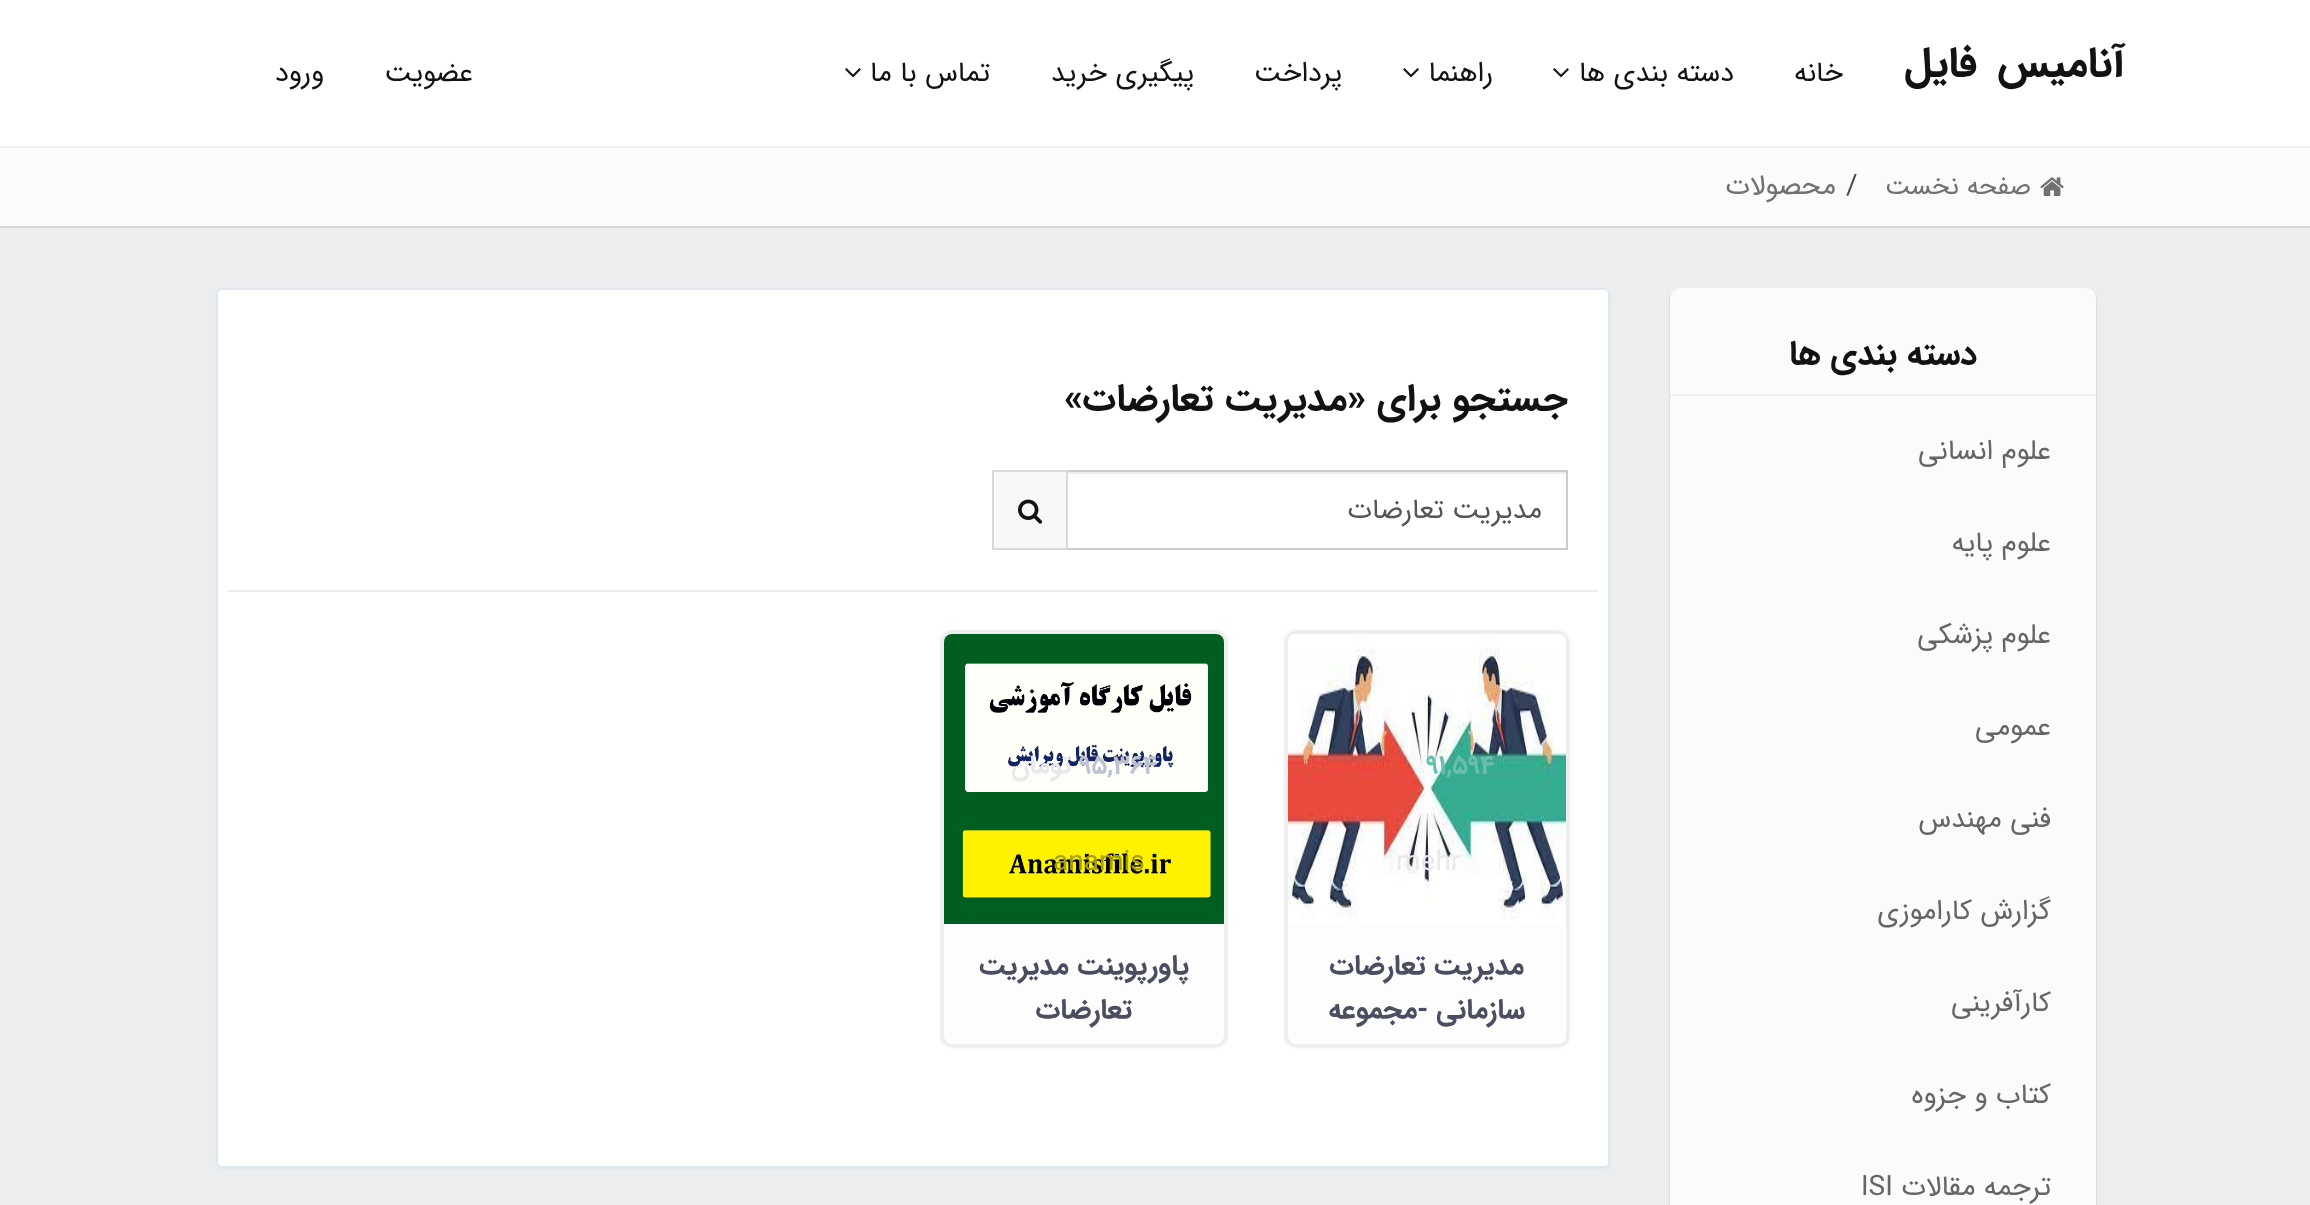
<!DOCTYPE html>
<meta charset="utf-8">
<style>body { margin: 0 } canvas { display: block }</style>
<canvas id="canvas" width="2310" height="1205"></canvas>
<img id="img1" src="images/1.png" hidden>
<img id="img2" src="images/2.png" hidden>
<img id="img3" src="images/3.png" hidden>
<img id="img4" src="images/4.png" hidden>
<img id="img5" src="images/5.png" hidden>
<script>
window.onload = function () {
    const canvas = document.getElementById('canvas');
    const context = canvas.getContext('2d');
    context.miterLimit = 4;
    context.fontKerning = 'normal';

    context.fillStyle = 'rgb(255, 255, 255)';
    context.fillRect(0, 0, 2310, 1205);
    context.fillStyle = 'rgb(239, 239, 239)';
    context.fillRect(0, 146, 2310, 2);
    context.drawImage(document.getElementById('img1'), 1553, 68, 16, 10);
    context.drawImage(document.getElementById('img1'), 1403, 68, 16, 10);
    context.drawImage(document.getElementById('img1'), 845, 68, 16, 10);
    context.fillStyle = 'rgb(251, 251, 251)';
    context.fillRect(0, 148, 2310, 78);
    context.fillStyle = 'rgb(216, 216, 216)';
    context.fillRect(0, 226, 2310, 2);
    context.drawImage(document.getElementById('img2'), 2040, 177, 24, 19);
    context.fillStyle = 'rgb(235, 237, 239)';
    context.fillRect(0, 228, 2310, 977);
    context.fillStyle = 'rgba(0, 0, 0, 0.2)';
    context.filter = 'blur(1px)';
    context.beginPath();
    context.roundRect(1670, 290, 426, 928, 10);
    context.fill();
    context.filter = 'none';
    context.fillStyle = 'rgb(251, 251, 251)';
    context.beginPath();
    context.roundRect(1670, 288, 426, 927, 10);
    context.fill();
    context.fillStyle = 'rgb(239, 239, 239)';
    context.fillRect(1670, 394, 426, 2);
    context.fillStyle = 'rgb(225, 232, 237)';
    context.filter = 'blur(1px)';
    context.beginPath();
    context.roundRect(216, 290, 1394, 880, 6);
    context.fill();
    context.filter = 'none';
    context.fillStyle = 'rgb(255, 255, 255)';
    context.beginPath();
    context.roundRect(217, 289, 1392, 878, 5);
    context.fill();
    context.strokeStyle = 'rgb(225, 232, 237)';
    context.lineWidth = 2;
    context.stroke();
    context.fillStyle = 'rgb(236, 236, 236)';
    context.fillRect(1068, 472, 498, 2);
    context.fillStyle = 'rgb(204, 204, 204)';
    context.fillRect(1068, 470, 500, 2);
    context.fillRect(1566, 470, 2, 80);
    context.fillRect(1068, 548, 500, 2);
    context.fillStyle = 'rgb(247, 247, 247)';
    context.beginPath();
    context.rect(993, 471, 74, 78);
    context.fill();
    context.strokeStyle = 'rgb(217, 217, 217)';
    context.stroke();
    context.drawImage(document.getElementById('img3'), 1018, 499, 25, 25);
    context.fillStyle = 'rgb(238, 238, 238)';
    context.fillRect(228, 590, 1370, 2);
    context.fillStyle = 'rgba(0, 0, 0, 0.18)';
    context.filter = 'blur(2px)';
    context.beginPath();
    context.roundRect(1286, 632, 282, 414, 10);
    context.fill();
    context.filter = 'none';
    context.fillStyle = 'rgb(253, 253, 253)';
    context.beginPath();
    context.roundRect(1287, 633, 280, 412, 9);
    context.fill();
    context.strokeStyle = 'rgb(238, 238, 238)';
    context.stroke();
    context.drawImage(document.getElementById('img4'), 1288, 634, 278, 290);
    context.fillStyle = 'rgba(0, 0, 0, 0.18)';
    context.filter = 'blur(2px)';
    context.beginPath();
    context.roundRect(942, 632, 284, 414, 10);
    context.fill();
    context.filter = 'none';
    context.fillStyle = 'rgb(253, 253, 253)';
    context.beginPath();
    context.roundRect(943, 633, 282, 412, 9);
    context.fill();
    context.stroke();
    context.drawImage(document.getElementById('img5'), 944, 634, 280, 290);
    context.letterSpacing = '-0.75px';
    context.wordSpacing = '9px';
    context.direction = 'rtl';
    context.font = 'bold 42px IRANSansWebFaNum';
    context.fillStyle = 'rgb(18, 18, 18)';
    context.fillText('آنامیس فایل', 2125, 76);
    context.letterSpacing = '0px';
    context.wordSpacing = '0px';
    context.font = '28px IRANSansWebFaNum';
    context.fillText('خانه', 1843, 81);
    context.fillText('دسته بندی ها', 1734, 81);
    context.fillText('راهنما', 1493, 81);
    context.fillText('پرداخت', 1342, 81);
    context.fillText('پیگیری خرید', 1194, 81);
    context.fillText('تماس با ما', 990, 81);
    context.fillText('عضویت', 473, 81);
    context.fillText('ورود', 324, 81);
    context.font = '26px IRANSansWebFaNum';
    context.fillStyle = 'rgb(113, 113, 113)';
    context.fillText('صفحه نخست', 2031, 194);
    context.direction = 'ltr';
    context.font = '28px IRANSansWebFaNum';
    context.fillStyle = 'rgb(76, 76, 76)';
    context.fillText('/', 1846, 194);
    context.direction = 'rtl';
    context.fillStyle = 'rgb(113, 113, 113)';
    context.fillText('محصولات', 1836, 194);
    context.font = 'bold 34px IRANSansWebFaNum';
    context.fillStyle = 'rgb(18, 18, 18)';
    context.fillText('دسته بندی ها', 1977, 364);
    context.font = '28px IRANSansWebFaNum';
    context.fillStyle = 'rgb(101, 101, 101)';
    context.fillText('علوم انسانی', 2051, 459);
    context.fillText('علوم پایه', 2051, 551);
    context.fillText('علوم پزشکی', 2051, 643);
    context.fillText('عمومی', 2051, 735);
    context.fillText('فنی مهندس', 2051, 827);
    context.fillText('گزارش کاراموزی', 2051, 919);
    context.fillText('کارآفرینی', 2051, 1011);
    context.fillText('کتاب و جزوه', 2051, 1103);
    context.fillText('ترجمه مقالات', 2051, 1195);
    context.direction = 'ltr';
    context.fillText('ISI', 1861, 1195);
    context.direction = 'rtl';
    context.font = 'bold 38px IRANSansWebFaNum';
    context.fillStyle = 'rgb(18, 18, 18)';
    context.fillText('جستجو برای «مدیریت تعارضات»', 1568, 410);
    context.font = '28px IRANSansWebFaNum';
    context.fillStyle = 'rgb(85, 85, 85)';
    context.fillText('مدیریت تعارضات', 1542, 518);
    context.direction = 'ltr';
    context.font = 'bold 26px IRANSansWebFaNum';
    context.fillStyle = 'rgb(105, 191, 172)';
    context.fillText('91,594', 1426, 773);
    context.font = '28px IRANSansWebFaNum';
    context.fillStyle = 'rgb(232, 233, 234)';
    context.fillText('mehr', 1396, 870);
    context.direction = 'rtl';
    context.font = 'bold 28px IRANSansWebFaNum';
    context.fillStyle = 'rgb(75, 78, 97)';
    context.fillText('مدیریت تعارضات', 1524, 974);
    context.fillText('سازمانی -مجموعه', 1525, 1018);
    context.direction = 'ltr';
    context.font = 'bold 26px IRANSansWebFaNum';
    context.fillStyle = 'rgb(190, 194, 207)';
    context.fillText('95,364', 1079, 773);
    context.direction = 'rtl';
    context.fillStyle = 'rgb(232, 233, 234)';
    context.fillText('تومان', 1071, 773);
    context.direction = 'ltr';
    context.font = '28px IRANSansWebFaNum';
    context.fillStyle = 'rgb(167, 160, 2)';
    context.fillText('anamis', 1053, 870);
    context.direction = 'rtl';
    context.font = 'bold 28px IRANSansWebFaNum';
    context.fillStyle = 'rgb(75, 78, 97)';
    context.fillText('پاورپوینت مدیریت', 1189, 974);
    context.fillText('تعارضات', 1132, 1018);
};
</script>
